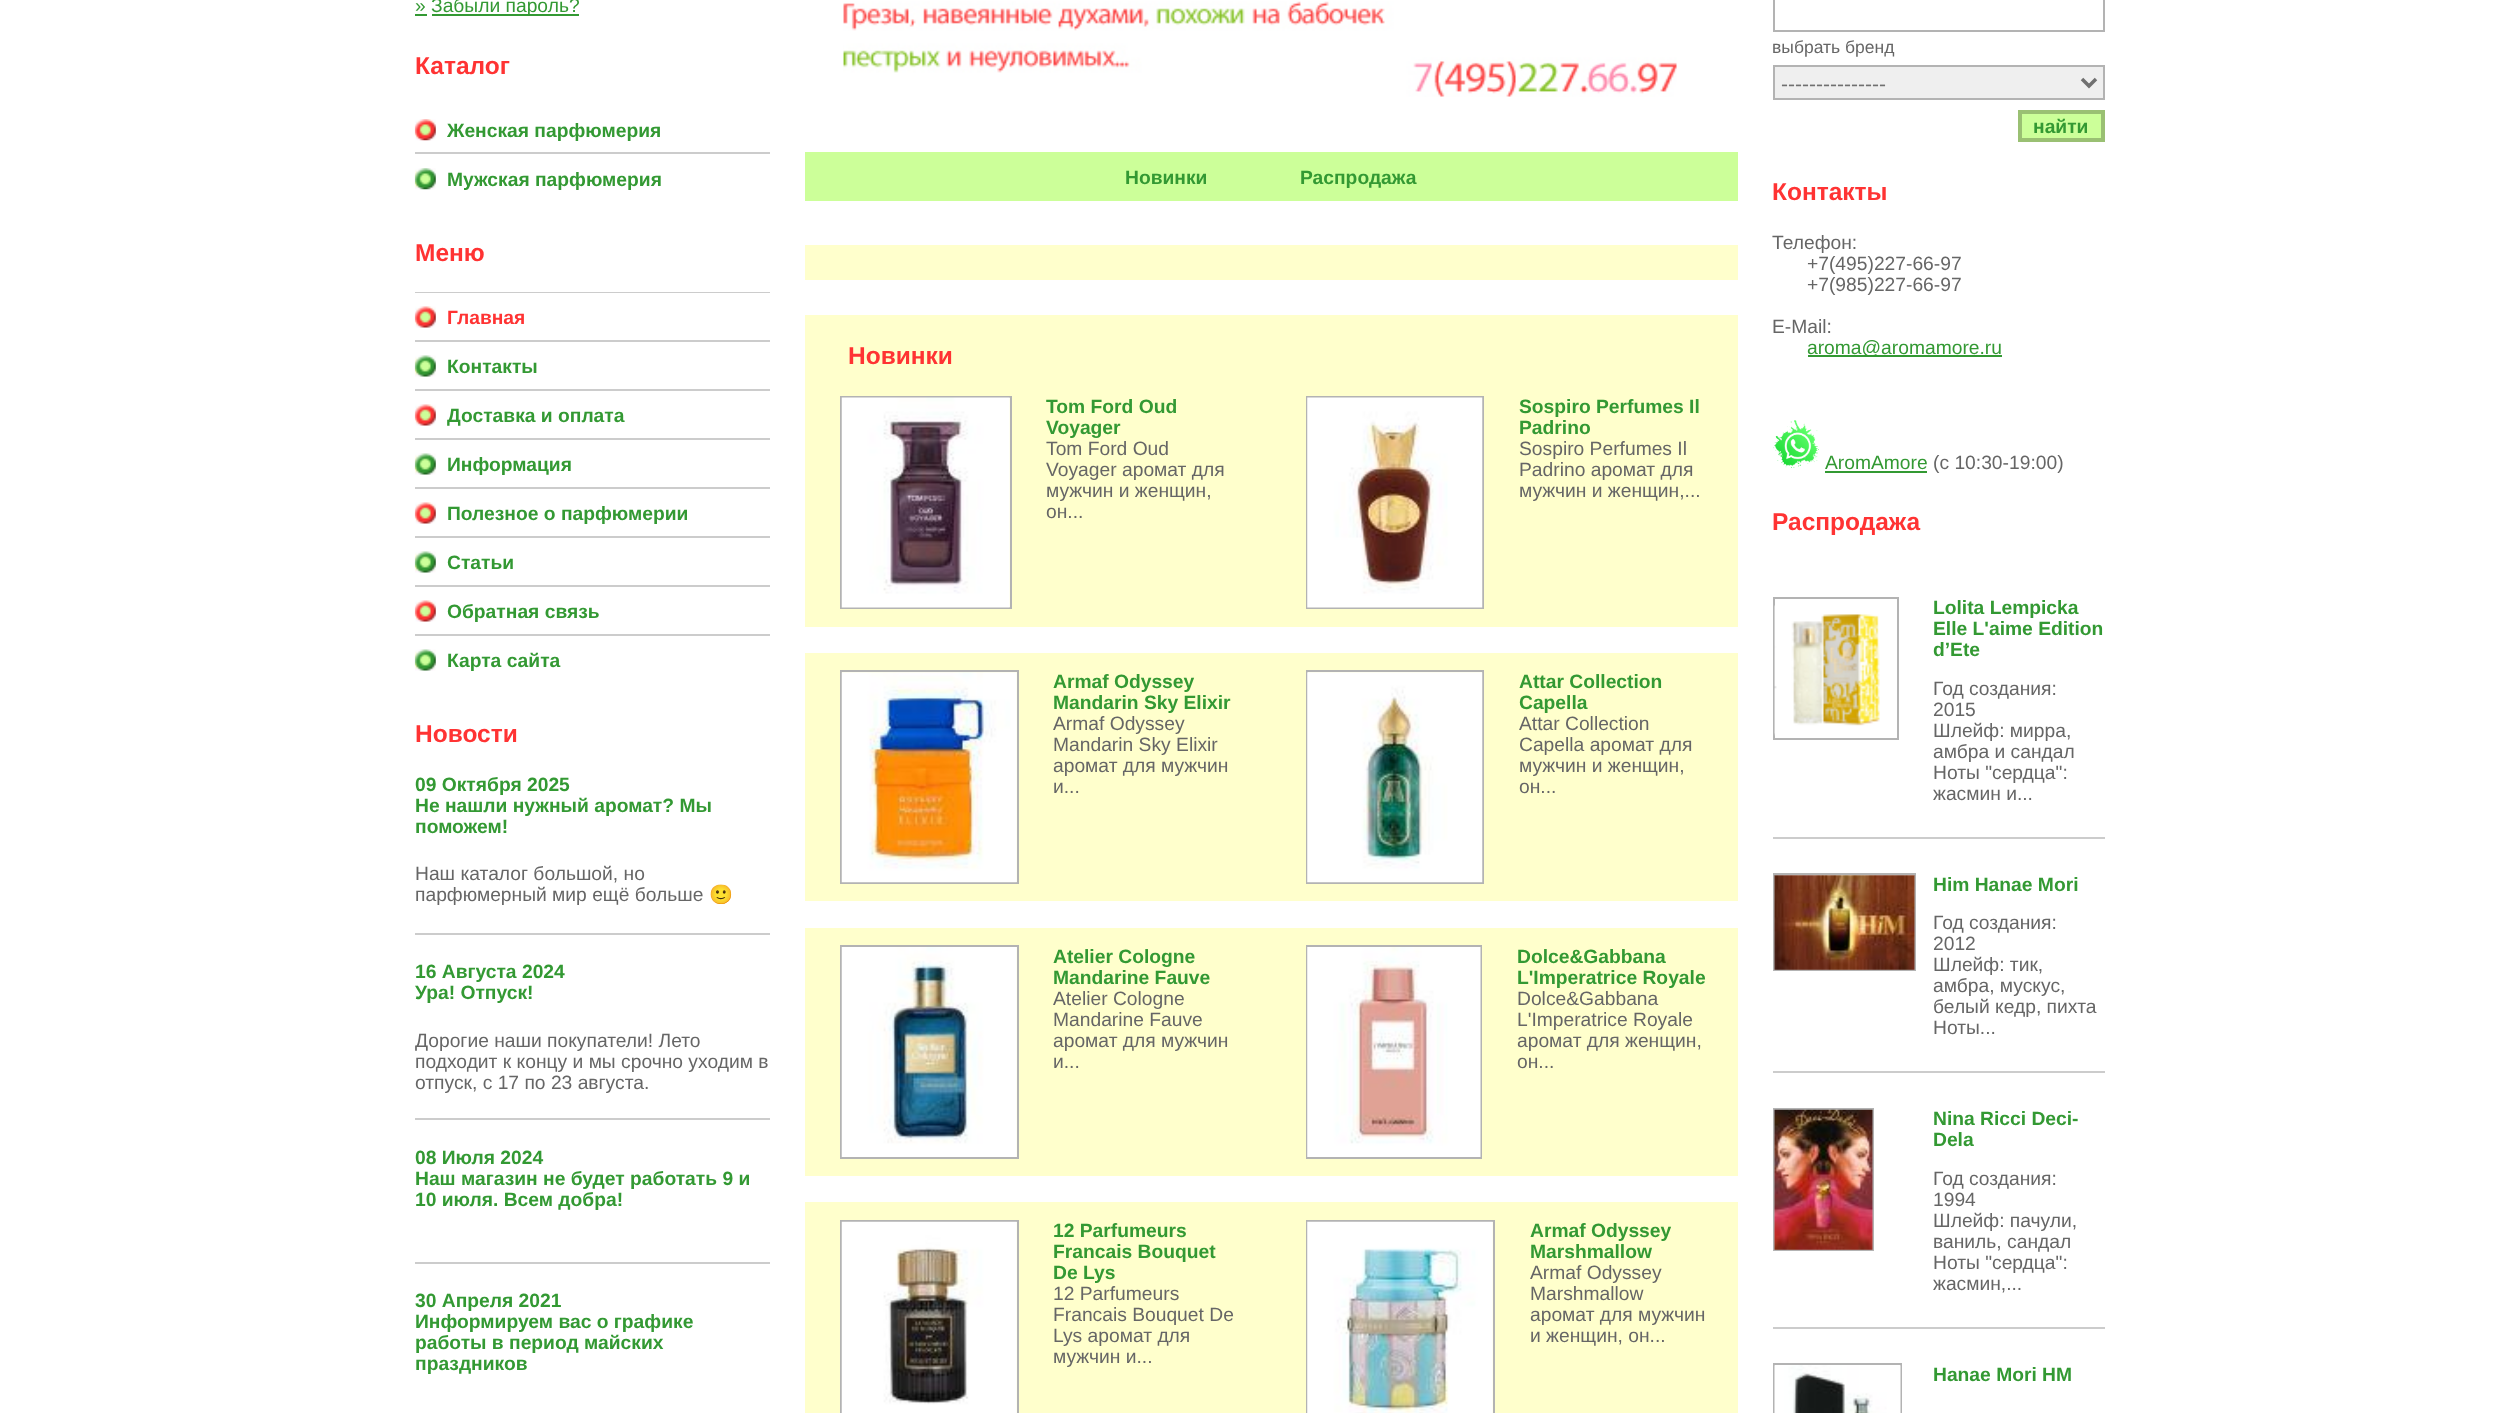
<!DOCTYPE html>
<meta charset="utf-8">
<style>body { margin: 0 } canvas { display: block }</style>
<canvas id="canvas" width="2520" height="1413"></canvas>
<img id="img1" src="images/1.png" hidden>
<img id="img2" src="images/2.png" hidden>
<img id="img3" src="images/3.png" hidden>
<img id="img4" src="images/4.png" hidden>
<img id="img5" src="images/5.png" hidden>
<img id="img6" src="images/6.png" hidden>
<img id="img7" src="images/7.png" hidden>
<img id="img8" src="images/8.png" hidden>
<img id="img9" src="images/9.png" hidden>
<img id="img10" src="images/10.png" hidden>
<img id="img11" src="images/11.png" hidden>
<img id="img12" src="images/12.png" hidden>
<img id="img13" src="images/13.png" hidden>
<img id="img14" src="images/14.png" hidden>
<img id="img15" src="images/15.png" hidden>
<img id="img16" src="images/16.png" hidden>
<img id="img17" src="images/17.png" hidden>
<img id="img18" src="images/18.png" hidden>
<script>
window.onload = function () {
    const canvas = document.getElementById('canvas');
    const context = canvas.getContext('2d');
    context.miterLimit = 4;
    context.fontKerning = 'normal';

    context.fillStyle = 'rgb(255, 255, 255)';
    context.fillRect(0, 0, 2520, 1413);
    context.fillStyle = 'rgb(51, 153, 51)';
    context.fillRect(415, 14, 12, 2);
    context.fillRect(432, 14, 147, 2);
    context.drawImage(document.getElementById('img1'), 414, 119, 22, 22);
    context.drawImage(document.getElementById('img2'), 414, 168, 22, 22);
    context.fillStyle = 'rgb(204, 204, 204)';
    context.fillRect(415, 152, 355, 2);
    context.drawImage(document.getElementById('img3'), 414, 306, 22, 22);
    context.fillRect(415, 292, 355, 1);
    context.drawImage(document.getElementById('img4'), 414, 355, 22, 22);
    context.fillRect(415, 340, 355, 2);
    context.drawImage(document.getElementById('img3'), 414, 404, 22, 22);
    context.fillRect(415, 389, 355, 2);
    context.drawImage(document.getElementById('img4'), 414, 453, 22, 22);
    context.fillRect(415, 438, 355, 2);
    context.drawImage(document.getElementById('img3'), 414, 502, 22, 22);
    context.fillRect(415, 487, 355, 2);
    context.drawImage(document.getElementById('img4'), 414, 551, 22, 22);
    context.fillRect(415, 536, 355, 2);
    context.drawImage(document.getElementById('img3'), 414, 600, 22, 22);
    context.fillRect(415, 585, 355, 2);
    context.drawImage(document.getElementById('img4'), 414, 649, 22, 22);
    context.fillRect(415, 634, 355, 2);
    context.fillRect(415, 933, 355, 2);
    context.fillRect(415, 1118, 355, 2);
    context.fillRect(415, 1262, 355, 2);
    context.drawImage(document.getElementById('img5'), 843, 1, 834, 96);
    context.fillStyle = 'rgb(204, 255, 153)';
    context.fillRect(805, 152, 933, 49);
    context.fillStyle = 'rgb(255, 255, 204)';
    context.fillRect(805, 245, 933, 35);
    context.fillRect(805, 315, 933, 312);
    context.strokeStyle = 'rgb(179, 179, 179)';
    context.lineWidth = 2;
    context.strokeRect(841, 397, 170, 211);
    context.drawImage(document.getElementById('img6'), 841, 397, 169, 211);
    context.strokeRect(1307, 397, 176, 211);
    context.drawImage(document.getElementById('img7'), 1307, 397, 176, 211);
    context.fillRect(805, 653, 933, 248);
    context.strokeRect(841, 671, 177, 212);
    context.drawImage(document.getElementById('img8'), 841, 672, 176, 211);
    context.strokeRect(1307, 671, 176, 212);
    context.drawImage(document.getElementById('img9'), 1307, 672, 176, 211);
    context.fillRect(805, 928, 933, 248);
    context.strokeRect(841, 946, 177, 212);
    context.drawImage(document.getElementById('img10'), 841, 947, 176, 210);
    context.strokeRect(1307, 946, 174, 212);
    context.drawImage(document.getElementById('img11'), 1307, 947, 174, 210);
    context.fillRect(805, 1202, 933, 211);
    context.strokeRect(841, 1221, 177, 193);
    context.drawImage(document.getElementById('img12'), 841, 1221, 176, 192);
    context.strokeRect(1307, 1221, 187, 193);
    context.drawImage(document.getElementById('img13'), 1307, 1221, 186, 192);
    context.strokeRect(1774, -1, 330, 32);
    context.fillStyle = 'rgb(239, 239, 239)';
    context.beginPath();
    context.rect(1774, 66, 330, 33);
    context.fill();
    context.stroke();
    context.beginPath();
    context.moveTo(2082, 79);
    context.lineTo(2089, 86);
    context.lineTo(2096, 79);
    context.strokeStyle = 'rgb(112, 112, 112)';
    context.lineWidth = 3.5;
    context.stroke();
    context.fillStyle = 'rgb(204, 255, 153)';
    context.beginPath();
    context.rect(2020, 112, 83, 28);
    context.fill();
    context.strokeStyle = 'rgb(154, 192, 115)';
    context.lineWidth = 4;
    context.stroke();
    context.fillStyle = 'rgb(51, 153, 51)';
    context.fillRect(1808, 355, 194, 2);
    context.drawImage(document.getElementById('img14'), 1773, 420, 46, 48);
    context.fillRect(1825, 471, 102, 2);
    context.strokeStyle = 'rgb(179, 179, 179)';
    context.lineWidth = 2;
    context.strokeRect(1774, 598, 124, 141);
    context.drawImage(document.getElementById('img15'), 1774, 605, 106, 131);
    context.fillStyle = 'rgb(204, 204, 204)';
    context.fillRect(1773, 837, 332, 2);
    context.strokeRect(1774, 874, 141, 96);
    context.drawImage(document.getElementById('img16'), 1774, 875, 141, 95);
    context.fillRect(1773, 1071, 332, 2);
    context.strokeRect(1774, 1109, 99, 141);
    context.drawImage(document.getElementById('img17'), 1774, 1109, 99, 141);
    context.fillRect(1773, 1327, 332, 2);
    context.strokeRect(1774, 1364, 127, 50);
    context.drawImage(document.getElementById('img18'), 1774, 1365, 127, 48);
    context.font = '19.25px Liberation Sans';
    context.fillStyle = 'rgb(51, 153, 51)';
    context.fillText('»', 415, 12);
    context.fillText('Забыли пароль?', 431, 12);
    context.font = 'bold 24.5px Liberation Sans';
    context.fillStyle = 'rgb(255, 51, 51)';
    context.fillText('Каталог', 415, 74);
    context.font = 'bold 19.25px Liberation Sans';
    context.fillStyle = 'rgb(51, 153, 51)';
    context.fillText('Женская парфюмерия', 447, 137);
    context.fillText('Мужская парфюмерия', 447, 186);
    context.font = 'bold 24.5px Liberation Sans';
    context.fillStyle = 'rgb(255, 51, 51)';
    context.fillText('Меню', 415, 261);
    context.font = 'bold 19.25px Liberation Sans';
    context.fillText('Главная', 447, 324);
    context.fillStyle = 'rgb(51, 153, 51)';
    context.fillText('Контакты', 447, 373);
    context.fillText('Доставка и оплата', 447, 422);
    context.fillText('Информация', 447, 471);
    context.fillText('Полезное о парфюмерии', 447, 520);
    context.fillText('Статьи', 447, 569);
    context.fillText('Обратная связь', 447, 618);
    context.fillText('Карта сайта', 447, 667);
    context.font = 'bold 24.5px Liberation Sans';
    context.fillStyle = 'rgb(255, 51, 51)';
    context.fillText('Новости', 415, 742);
    context.font = 'bold 19.25px Liberation Sans';
    context.fillStyle = 'rgb(51, 153, 51)';
    context.fillText('09 Октября 2025', 415, 791);
    context.fillText('Не нашли нужный аромат? Мы', 415, 812);
    context.fillText('поможем!', 415, 833);
    context.font = '19.25px Liberation Sans';
    context.fillStyle = 'rgb(102, 102, 102)';
    context.fillText('Наш каталог большой, но', 415, 880);
    context.fillText('парфюмерный мир ещё больше', 415, 901);
    context.font = '19.25px Noto Color Emoji';
    context.fillText('🙂', 709, 901);
    context.font = 'bold 19.25px Liberation Sans';
    context.fillStyle = 'rgb(51, 153, 51)';
    context.fillText('16 Августа 2024', 415, 978);
    context.fillText('Ура! Отпуск!', 415, 999);
    context.font = '19.25px Liberation Sans';
    context.fillStyle = 'rgb(102, 102, 102)';
    context.fillText('Дорогие наши покупатели! Лето', 415, 1047);
    context.fillText('подходит к концу и мы срочно уходим в', 415, 1068);
    context.fillText('отпуск, с 17 по 23 августа.', 415, 1089);
    context.font = 'bold 19.25px Liberation Sans';
    context.fillStyle = 'rgb(51, 153, 51)';
    context.fillText('08 Июля 2024', 415, 1164);
    context.fillText('Наш магазин не будет работать 9 и', 415, 1185);
    context.fillText('10 июля. Всем добра!', 415, 1206);
    context.fillText('30 Апреля 2021', 415, 1307);
    context.fillText('Информируем вас о графике', 415, 1328);
    context.fillText('работы в период майских', 415, 1349);
    context.fillText('праздников', 415, 1370);
    context.fillText('Новинки', 1125, 184);
    context.fillText('Распродажа', 1300, 184);
    context.font = 'bold 24.5px Liberation Sans';
    context.fillStyle = 'rgb(255, 51, 51)';
    context.fillText('Новинки', 848, 364);
    context.font = 'bold 19.25px Liberation Sans';
    context.fillStyle = 'rgb(51, 153, 51)';
    context.fillText('Tom Ford Oud', 1046, 413);
    context.fillText('Voyager', 1046, 434);
    context.font = '19.25px Liberation Sans';
    context.fillStyle = 'rgb(102, 102, 102)';
    context.fillText('Tom Ford Oud', 1046, 455);
    context.fillText('Voyager аромат для', 1046, 476);
    context.fillText('мужчин и женщин,', 1046, 497);
    context.fillText('он...', 1046, 518);
    context.font = 'bold 19.25px Liberation Sans';
    context.fillStyle = 'rgb(51, 153, 51)';
    context.fillText('Sospiro Perfumes Il', 1519, 413);
    context.fillText('Padrino', 1519, 434);
    context.font = '19.25px Liberation Sans';
    context.fillStyle = 'rgb(102, 102, 102)';
    context.fillText('Sospiro Perfumes Il', 1519, 455);
    context.fillText('Padrino аромат для', 1519, 476);
    context.fillText('мужчин и женщин,...', 1519, 497);
    context.font = 'bold 19.25px Liberation Sans';
    context.fillStyle = 'rgb(51, 153, 51)';
    context.fillText('Armaf Odyssey', 1053, 688);
    context.fillText('Mandarin Sky Elixir', 1053, 709);
    context.font = '19.25px Liberation Sans';
    context.fillStyle = 'rgb(102, 102, 102)';
    context.fillText('Armaf Odyssey', 1053, 730);
    context.fillText('Mandarin Sky Elixir', 1053, 751);
    context.fillText('аромат для мужчин', 1053, 772);
    context.fillText('и...', 1053, 793);
    context.font = 'bold 19.25px Liberation Sans';
    context.fillStyle = 'rgb(51, 153, 51)';
    context.fillText('Attar Collection', 1519, 688);
    context.fillText('Capella', 1519, 709);
    context.font = '19.25px Liberation Sans';
    context.fillStyle = 'rgb(102, 102, 102)';
    context.fillText('Attar Collection', 1519, 730);
    context.fillText('Capella аромат для', 1519, 751);
    context.fillText('мужчин и женщин,', 1519, 772);
    context.fillText('он...', 1519, 793);
    context.font = 'bold 19.25px Liberation Sans';
    context.fillStyle = 'rgb(51, 153, 51)';
    context.fillText('Atelier Cologne', 1053, 963);
    context.fillText('Mandarine Fauve', 1053, 984);
    context.font = '19.25px Liberation Sans';
    context.fillStyle = 'rgb(102, 102, 102)';
    context.fillText('Atelier Cologne', 1053, 1005);
    context.fillText('Mandarine Fauve', 1053, 1026);
    context.fillText('аромат для мужчин', 1053, 1047);
    context.fillText('и...', 1053, 1068);
    context.font = 'bold 19.25px Liberation Sans';
    context.fillStyle = 'rgb(51, 153, 51)';
    context.fillText('Dolce&Gabbana', 1517, 963);
    context.fillText('L\'Imperatrice Royale', 1517, 984);
    context.font = '19.25px Liberation Sans';
    context.fillStyle = 'rgb(102, 102, 102)';
    context.fillText('Dolce&Gabbana', 1517, 1005);
    context.fillText('L\'Imperatrice Royale', 1517, 1026);
    context.fillText('аромат для женщин,', 1517, 1047);
    context.fillText('он...', 1517, 1068);
    context.font = 'bold 19.25px Liberation Sans';
    context.fillStyle = 'rgb(51, 153, 51)';
    context.fillText('12 Parfumeurs', 1053, 1237);
    context.fillText('Francais Bouquet', 1053, 1258);
    context.fillText('De Lys', 1053, 1279);
    context.font = '19.25px Liberation Sans';
    context.fillStyle = 'rgb(102, 102, 102)';
    context.fillText('12 Parfumeurs', 1053, 1300);
    context.fillText('Francais Bouquet De', 1053, 1321);
    context.fillText('Lys аромат для', 1053, 1342);
    context.fillText('мужчин и...', 1053, 1363);
    context.font = 'bold 19.25px Liberation Sans';
    context.fillStyle = 'rgb(51, 153, 51)';
    context.fillText('Armaf Odyssey', 1530, 1237);
    context.fillText('Marshmallow', 1530, 1258);
    context.font = '19.25px Liberation Sans';
    context.fillStyle = 'rgb(102, 102, 102)';
    context.fillText('Armaf Odyssey', 1530, 1279);
    context.fillText('Marshmallow', 1530, 1300);
    context.fillText('аромат для мужчин', 1530, 1321);
    context.fillText('и женщин, он...', 1530, 1342);
    context.font = '17.5px Liberation Sans';
    context.fillText('выбрать бренд', 1772, 53);
    context.font = '21px Liberation Sans';
    context.fillStyle = 'rgb(112, 112, 112)';
    context.fillText('---------------', 1781, 91);
    context.font = 'bold 19.25px Liberation Sans';
    context.fillStyle = 'rgb(51, 153, 51)';
    context.fillText('найти', 2033, 133);
    context.font = 'bold 24.5px Liberation Sans';
    context.fillStyle = 'rgb(255, 51, 51)';
    context.fillText('Контакты', 1772, 200);
    context.font = '19.25px Liberation Sans';
    context.fillStyle = 'rgb(102, 102, 102)';
    context.fillText('Телефон:', 1772, 249);
    context.fillText('+7(495)227-66-97', 1807, 270);
    context.fillText('+7(985)227-66-97', 1807, 291);
    context.fillText('E-Mail:', 1772, 333);
    context.fillStyle = 'rgb(51, 153, 51)';
    context.fillText('aroma@aromamore.ru', 1807, 354);
    context.fillText('AromAmore', 1825, 469);
    context.fillStyle = 'rgb(102, 102, 102)';
    context.fillText('(с 10:30-19:00)', 1933, 469);
    context.font = 'bold 24.5px Liberation Sans';
    context.fillStyle = 'rgb(255, 51, 51)';
    context.fillText('Распродажа', 1772, 530);
    context.font = 'bold 19.25px Liberation Sans';
    context.fillStyle = 'rgb(51, 153, 51)';
    context.fillText('Lolita Lempicka', 1933, 614);
    context.fillText('Elle L\'aime Edition', 1933, 635);
    context.fillText('d’Ete', 1933, 656);
    context.font = '19.25px Liberation Sans';
    context.fillStyle = 'rgb(102, 102, 102)';
    context.fillText('Год создания:', 1933, 695);
    context.fillText('2015', 1933, 716);
    context.fillText('Шлейф: мирра,', 1933, 737);
    context.fillText('амбра и сандал', 1933, 758);
    context.fillText('Ноты "сердца":', 1933, 779);
    context.fillText('жасмин и...', 1933, 800);
    context.font = 'bold 19.25px Liberation Sans';
    context.fillStyle = 'rgb(51, 153, 51)';
    context.fillText('Him Hanae Mori', 1933, 891);
    context.font = '19.25px Liberation Sans';
    context.fillStyle = 'rgb(102, 102, 102)';
    context.fillText('Год создания:', 1933, 929);
    context.fillText('2012', 1933, 950);
    context.fillText('Шлейф: тик,', 1933, 971);
    context.fillText('амбра, мускус,', 1933, 992);
    context.fillText('белый кедр, пихта', 1933, 1013);
    context.fillText('Ноты...', 1933, 1034);
    context.font = 'bold 19.25px Liberation Sans';
    context.fillStyle = 'rgb(51, 153, 51)';
    context.fillText('Nina Ricci Deci-', 1933, 1125);
    context.fillText('Dela', 1933, 1146);
    context.font = '19.25px Liberation Sans';
    context.fillStyle = 'rgb(102, 102, 102)';
    context.fillText('Год создания:', 1933, 1185);
    context.fillText('1994', 1933, 1206);
    context.fillText('Шлейф: пачули,', 1933, 1227);
    context.fillText('ваниль, сандал', 1933, 1248);
    context.fillText('Ноты "сердца":', 1933, 1269);
    context.fillText('жасмин,...', 1933, 1290);
    context.font = 'bold 19.25px Liberation Sans';
    context.fillStyle = 'rgb(51, 153, 51)';
    context.fillText('Hanae Mori HM', 1933, 1381);
};
</script>
